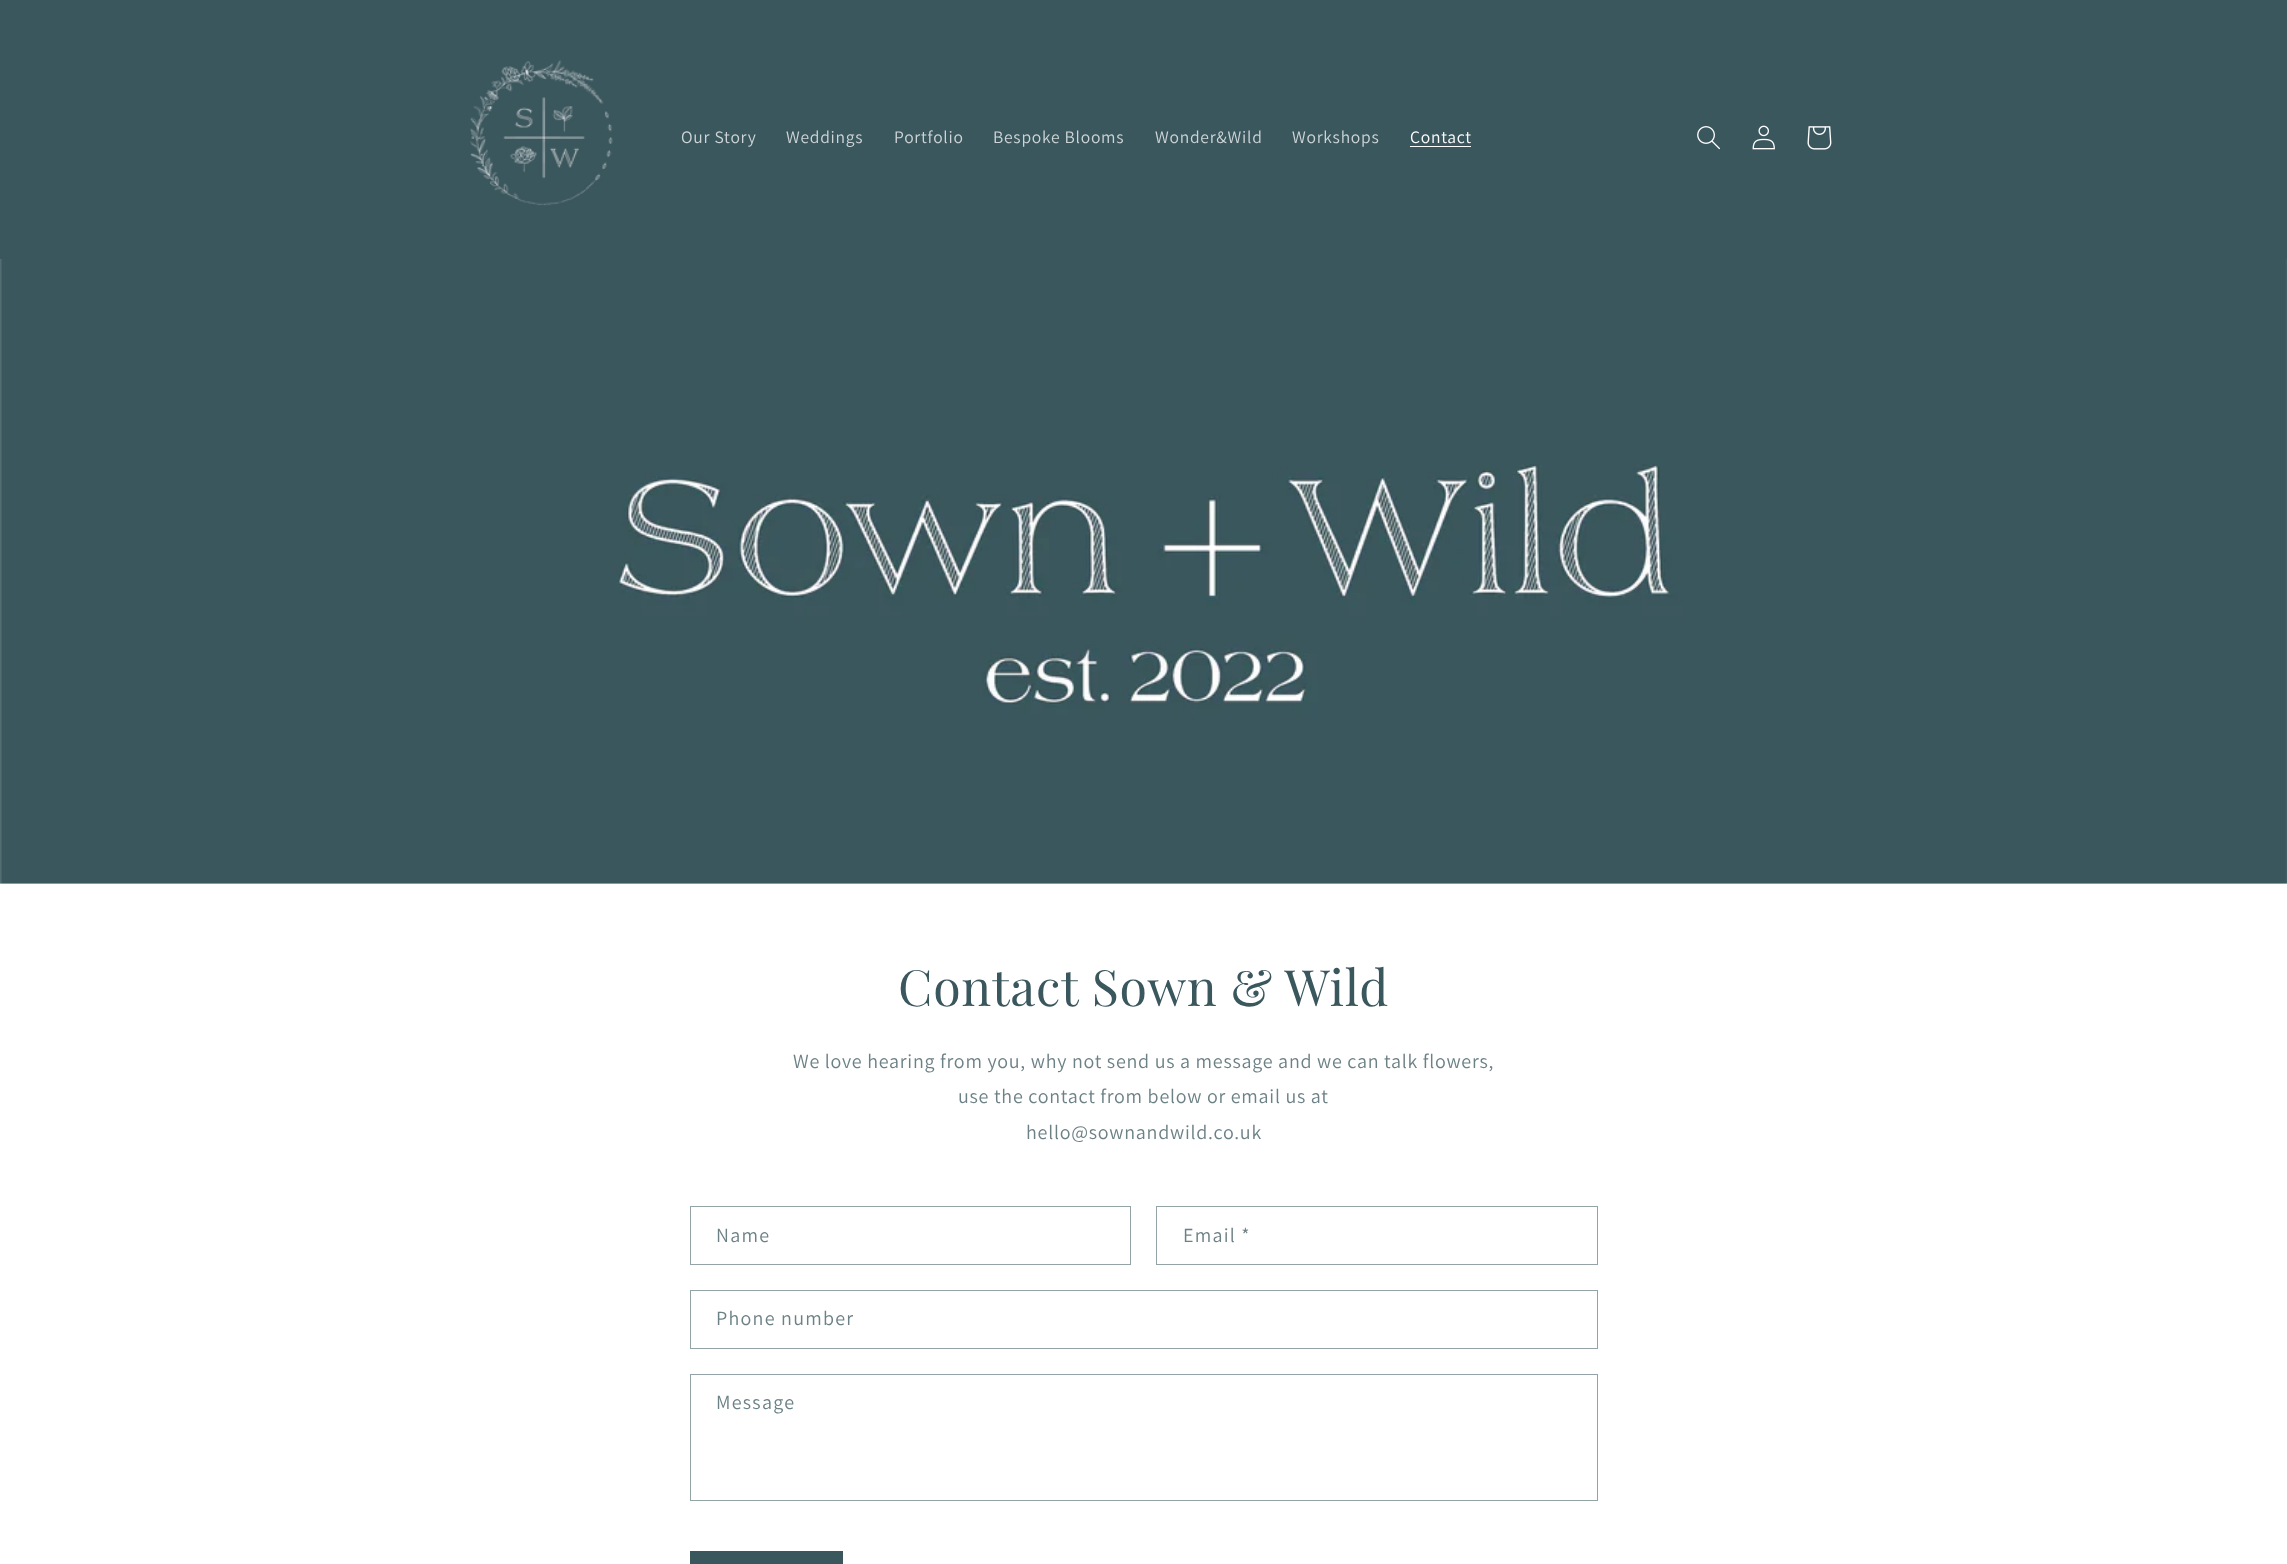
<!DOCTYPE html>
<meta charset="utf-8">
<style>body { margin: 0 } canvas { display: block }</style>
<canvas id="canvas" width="2287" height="1564"></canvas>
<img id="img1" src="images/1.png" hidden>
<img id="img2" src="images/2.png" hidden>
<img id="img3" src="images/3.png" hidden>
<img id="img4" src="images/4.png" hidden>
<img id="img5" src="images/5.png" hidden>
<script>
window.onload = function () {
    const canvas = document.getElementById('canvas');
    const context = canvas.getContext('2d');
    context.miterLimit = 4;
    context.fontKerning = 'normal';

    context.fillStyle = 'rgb(255, 255, 255)';
    context.fillRect(0, 0, 2287, 1564);
    context.fillStyle = 'rgb(59, 87, 94)';
    context.fillRect(0, 0, 2287, 259);
    context.drawImage(document.getElementById('img1'), 470, 60, 143, 146);
    context.fillStyle = 'rgb(255, 255, 255)';
    context.fillRect(1410, 146, 61, 1);
    context.drawImage(document.getElementById('img2'), 1697, 126, 23, 24);
    context.drawImage(document.getElementById('img3'), 1752, 125, 23, 25);
    context.drawImage(document.getElementById('img4'), 1807, 126, 25, 24);
    context.fillStyle = 'rgb(236, 239, 240)';
    context.fillRect(0, 259, 2287, 625);
    context.drawImage(document.getElementById('img5'), 0, 259, 2287, 625);
    context.strokeStyle = 'rgb(147, 163, 166)';
    context.strokeRect(690.5, 1206.5, 440, 58);
    context.strokeRect(1156.5, 1206.5, 441, 58);
    context.strokeRect(690.5, 1290.5, 907, 58);
    context.strokeRect(690.5, 1374.5, 907, 126);
    context.fillStyle = 'rgb(59, 87, 94)';
    context.fillRect(690, 1551, 153, 13);
    context.letterSpacing = '0.75px';
    context.font = '17.5px Assistant';
    context.fillStyle = 'rgb(206, 213, 215)';
    context.fillText('Our Story', 681, 143);
    context.fillText('Weddings', 786, 143);
    context.fillText('Portfolio', 894, 143);
    context.fillText('Bespoke Blooms', 993, 143);
    context.fillText('Wonder&Wild', 1155, 143);
    context.fillText('Workshops', 1292, 143);
    context.fillStyle = 'rgb(255, 255, 255)';
    context.fillText('Contact', 1410, 143);
    context.font = '50px Playfair Display';
    context.fillStyle = 'rgb(59, 87, 94)';
    context.fillText('Contact Sown & Wild', 898, 1006);
    context.font = '20px Assistant';
    context.fillStyle = 'rgb(108, 129, 134)';
    context.fillText('We love hearing from you, why not send us a message and we can talk flowers,', 793, 1068);
    context.fillText('use the contact from below or email us at', 958, 1103);
    context.fillText('hello@sownandwild.co.uk', 1026, 1139);
    context.letterSpacing = '1.25px';
    context.fillText('Name', 716, 1242);
    context.fillText('Email *', 1183, 1242);
    context.fillText('Phone number', 716, 1325);
    context.fillText('Message', 716, 1409);
};
</script>
